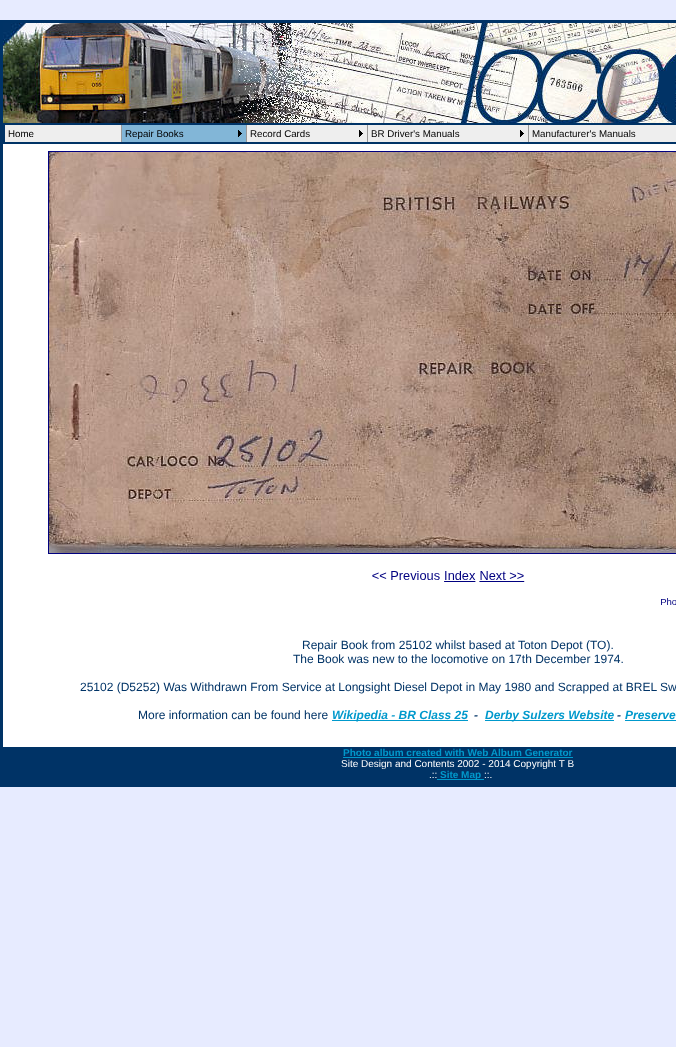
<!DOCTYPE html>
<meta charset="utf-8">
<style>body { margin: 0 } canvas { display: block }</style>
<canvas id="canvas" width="676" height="1047"></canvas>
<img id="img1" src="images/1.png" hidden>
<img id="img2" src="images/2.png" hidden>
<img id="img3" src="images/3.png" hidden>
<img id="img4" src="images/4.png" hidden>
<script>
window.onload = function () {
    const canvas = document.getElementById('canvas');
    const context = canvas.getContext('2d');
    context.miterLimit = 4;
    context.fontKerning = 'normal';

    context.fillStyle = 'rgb(231, 235, 255)';
    context.fillRect(0, 0, 676, 1047);
    context.fillStyle = 'rgb(255, 255, 255)';
    context.fillRect(3, 144, 673, 603);
    context.fillStyle = 'rgb(0, 51, 102)';
    context.fillRect(0, 20, 676, 3);
    context.fillRect(0, 20, 3, 767);
    context.drawImage(document.getElementById('img1'), 3, 23, 673, 100);
    context.fillStyle = 'rgb(238, 238, 238)';
    context.beginPath();
    context.rect(4, 124, 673, 19);
    context.fill();
    context.strokeStyle = 'rgb(0, 51, 102)';
    context.lineWidth = 2;
    context.stroke();
    context.fillStyle = 'rgb(153, 153, 153)';
    context.fillRect(121, 125, 1, 17);
    context.fillStyle = 'rgb(130, 182, 215)';
    context.fillRect(122, 125, 124, 17);
    context.drawImage(document.getElementById('img2'), 238, 130, 4, 7);
    context.fillStyle = 'rgb(153, 153, 153)';
    context.fillRect(246, 125, 1, 17);
    context.drawImage(document.getElementById('img3'), 359, 130, 4, 7);
    context.fillRect(367, 125, 1, 17);
    context.drawImage(document.getElementById('img3'), 520, 130, 4, 7);
    context.fillRect(528, 125, 1, 17);
    context.drawImage(document.getElementById('img4'), 48, 151, 628, 454);
    context.fillStyle = 'rgb(0, 153, 204)';
    context.fillRect(332, 720, 136, 1);
    context.fillRect(485, 720, 129, 1);
    context.fillRect(625, 720, 51, 1);
    context.fillStyle = 'rgb(0, 51, 102)';
    context.fillRect(3, 747, 673, 40);
    context.fillStyle = 'rgb(0, 153, 204)';
    context.fillRect(343, 757, 230, 1);
    context.fillRect(437, 779, 47, 1);
    context.font = '9.75px Liberation Sans';
    context.fillStyle = 'rgb(0, 0, 0)';
    context.fillText('Home', 8, 137);
    context.fillText('Repair Books', 125, 137);
    context.fillText('Record Cards', 250, 137);
    context.fillText('BR Driver\'s Manuals', 371, 137);
    context.fillText('Manufacturer\'s Manuals', 532, 137);
    context.font = '12px Liberation Sans';
    context.fillStyle = 'rgb(0, 51, 102)';
    context.fillText('Repair Book from 25102 whilst based at Toton Depot (TO).', 302, 649);
    context.fillText('The Book was new to the locomotive on 17th December 1974.', 293, 663);
    context.fillText('25102 (D5252) Was Withdrawn From Service at Longsight Diesel Depot in May 1980 and Scrapped at BREL Sw', 80, 691);
    context.fillText('More information can be found here', 138, 719);
    context.font = 'italic bold 12px Liberation Sans';
    context.fillStyle = 'rgb(0, 153, 204)';
    context.fillText('Wikipedia - BR Class 25', 332, 719);
    context.fillStyle = 'rgb(0, 51, 102)';
    context.fillText('-', 474, 719);
    context.fillStyle = 'rgb(0, 153, 204)';
    context.fillText('Derby Sulzers Website', 485, 719);
    context.fillStyle = 'rgb(0, 51, 102)';
    context.fillText('-', 617, 719);
    context.fillStyle = 'rgb(0, 153, 204)';
    context.fillText('Preserve', 625, 719);
    context.font = 'bold 10px Liberation Sans';
    context.fillText('Photo album created with Web Album Generator', 343, 756);
    context.font = '10px Liberation Sans';
    context.fillStyle = 'rgb(255, 255, 255)';
    context.fillText('Site Design and Contents 2002 - 2014 Copyright T B', 341, 767);
    context.fillText('.::', 429, 778);
    context.font = 'bold 10px Liberation Sans';
    context.fillStyle = 'rgb(0, 153, 204)';
    context.fillText('Site Map', 440, 778);
    context.font = '10px Liberation Sans';
    context.fillStyle = 'rgb(255, 255, 255)';
    context.fillText('::.', 484, 778);
};
</script>
